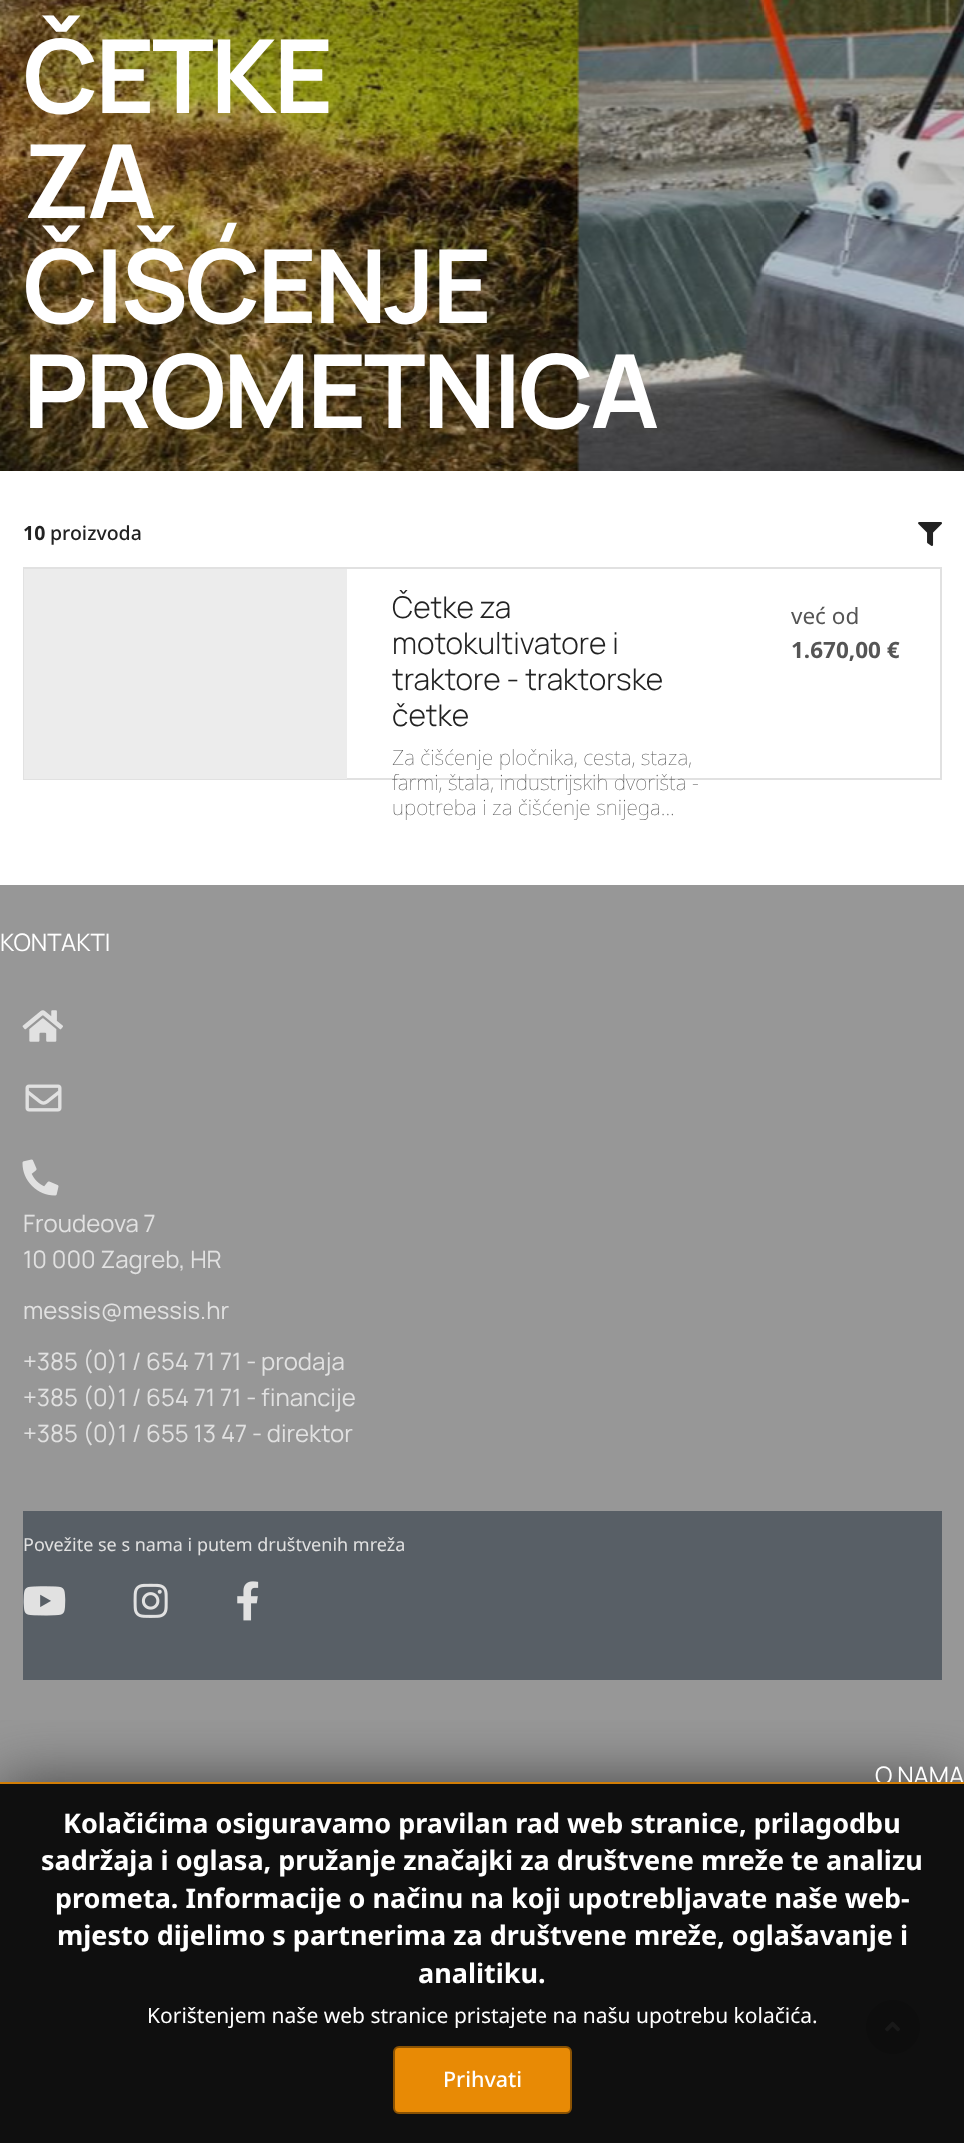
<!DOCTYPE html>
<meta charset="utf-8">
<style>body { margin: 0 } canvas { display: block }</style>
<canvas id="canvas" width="964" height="2143"></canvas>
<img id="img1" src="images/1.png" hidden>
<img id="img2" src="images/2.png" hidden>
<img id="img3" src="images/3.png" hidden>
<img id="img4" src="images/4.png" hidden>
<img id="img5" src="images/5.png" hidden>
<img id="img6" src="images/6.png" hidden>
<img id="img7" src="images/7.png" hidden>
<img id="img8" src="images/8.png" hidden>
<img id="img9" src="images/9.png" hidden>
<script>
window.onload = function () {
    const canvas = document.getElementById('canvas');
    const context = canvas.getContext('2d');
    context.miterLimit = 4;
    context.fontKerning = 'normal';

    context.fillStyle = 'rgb(255, 255, 255)';
    context.fillRect(0, 0, 964, 2143);
    context.drawImage(document.getElementById('img1'), 0, 0, 964, 471);
    context.drawImage(document.getElementById('img2'), 918, 522, 24, 24);
    context.strokeStyle = 'rgb(225, 225, 225)';
    context.lineWidth = 2;
    context.strokeRect(24, 568, 917, 211);
    context.fillStyle = 'rgb(236, 236, 236)';
    context.fillRect(24, 569, 323, 210);
    context.fillStyle = 'rgb(151, 151, 151)';
    context.fillRect(0, 885, 964, 1258);
    context.drawImage(document.getElementById('img3'), 22, 1010, 41, 32);
    context.drawImage(document.getElementById('img4'), 25, 1084, 37, 28);
    context.drawImage(document.getElementById('img5'), 22, 1159, 37, 37);
    context.fillStyle = 'rgb(88, 95, 102)';
    context.fillRect(23, 1511, 919, 169);
    context.drawImage(document.getElementById('img6'), 23, 1586, 43, 30);
    context.drawImage(document.getElementById('img7'), 133, 1583, 35, 35);
    context.drawImage(document.getElementById('img8'), 237, 1581, 22, 40);
    context.fillStyle = 'rgba(100, 100, 100, 0.4)';
    context.beginPath();
    context.arc(893, 2027, 27, 0, 2 * Math.PI);
    context.fill();
    context.drawImage(document.getElementById('img9'), 885, 2021, 15, 11);
    context.save();
    context.beginPath();
    context.rect(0, 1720, 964, 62);
    context.clip();
    context.fillStyle = 'rgb(68, 68, 68)';
    context.filter = 'blur(30px)';
    context.beginPath();
    context.rect(0, 1782, 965, 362);
    context.fill();
    context.filter = 'none';
    context.restore();
    context.letterSpacing = '-3px';
    context.font = 'bold 102px Manrope';
    context.fillStyle = 'rgb(255, 255, 255)';
    context.fillText('ČETKE', 23, 113);
    context.fillText('ZA', 23, 218);
    context.fillText('ČIŠĆENJE', 23, 323);
    context.fillText('PROMETNICA', 23, 428);
    context.letterSpacing = '0px';
    context.font = 'bold 19.5px Noto Sans';
    context.fillStyle = 'rgb(34, 34, 34)';
    context.fillText('10', 23, 540);
    context.font = '500 19.5px Noto Sans';
    context.fillText('proizvoda', 50, 540);
    context.font = '300 30px Manrope';
    context.fillText('Četke za', 392, 618);
    context.fillText('motokultivatore i', 392, 654);
    context.fillText('traktore - traktorske', 392, 690);
    context.fillText('četke', 392, 726);
    context.font = '100 21px Noto Sans';
    context.fillStyle = 'rgb(85, 85, 85)';
    context.fillText('Za čišćenje pločnika, cesta, staza,', 392, 765);
    context.fillText('farmi, štala, industrijskih dvorišta -', 392, 790);
    context.fillText('upotreba i za čišćenje snijega...', 392, 815);
    context.font = '22.5px Noto Sans';
    context.fillText('već od', 791, 624);
    context.font = 'bold 22.5px Noto Sans';
    context.fillText('1.670,00 €', 791, 658);
    context.font = '24px Manrope';
    context.fillStyle = 'rgb(255, 255, 255)';
    context.fillText('KONTAKTI', 0, 951);
    context.fillStyle = 'rgb(225, 225, 225)';
    context.fillText('Froudeova 7', 23, 1232);
    context.fillText('10 000 Zagreb, HR', 23, 1268);
    context.fillText('messis@messis.hr', 23, 1319);
    context.fillText('+385 (0)1 / 654 71 71 - prodaja', 23, 1370);
    context.fillText('+385 (0)1 / 654 71 71 - financije', 23, 1406);
    context.fillText('+385 (0)1 / 655 13 47 - direktor', 23, 1442);
    context.font = '18px Noto Sans';
    context.fillText('Povežite se s nama i putem društvenih mreža', 23, 1551);
    context.font = '24px Manrope';
    context.fillStyle = 'rgb(255, 255, 255)';
    context.fillText('O NAMA', 875, 1784);
    context.fillStyle = 'rgba(0, 0, 0, 0.9)';
    context.fillRect(0, 1782, 964, 361);
    context.fillStyle = 'rgba(232, 138, 5, 0.9)';
    context.fillRect(0, 1782, 964, 2);
    context.font = 'bold 27px Noto Sans';
    context.fillStyle = 'rgb(255, 255, 255)';
    context.fillText('Kolačićima osiguravamo pravilan rad web stranice, prilagodbu', 63, 1833);
    context.fillText('sadržaja i oglasa, pružanje značajki za društvene mreže te analizu', 41, 1870);
    context.fillText('prometa. Informacije o načinu na koji upotrebljavate naše web-', 55, 1908);
    context.fillText('mjesto dijelimo s partnerima za društvene mreže, oglašavanje i', 57, 1945);
    context.fillText('analitiku.', 418, 1983);
    context.font = '21px Noto Sans';
    context.fillText('Korištenjem naše web stranice pristajete na našu upotrebu kolačića.', 147, 2023);
    context.fillStyle = 'rgb(232, 138, 5)';
    context.beginPath();
    context.roundRect(394, 2047, 177, 66, 5);
    context.fill();
    context.strokeStyle = 'rgb(138, 82, 3)';
    context.stroke();
    context.font = '500 21.5px Noto Sans';
    context.fillStyle = 'rgb(255, 255, 255)';
    context.fillText('Prihvati', 443, 2087);
};
</script>
